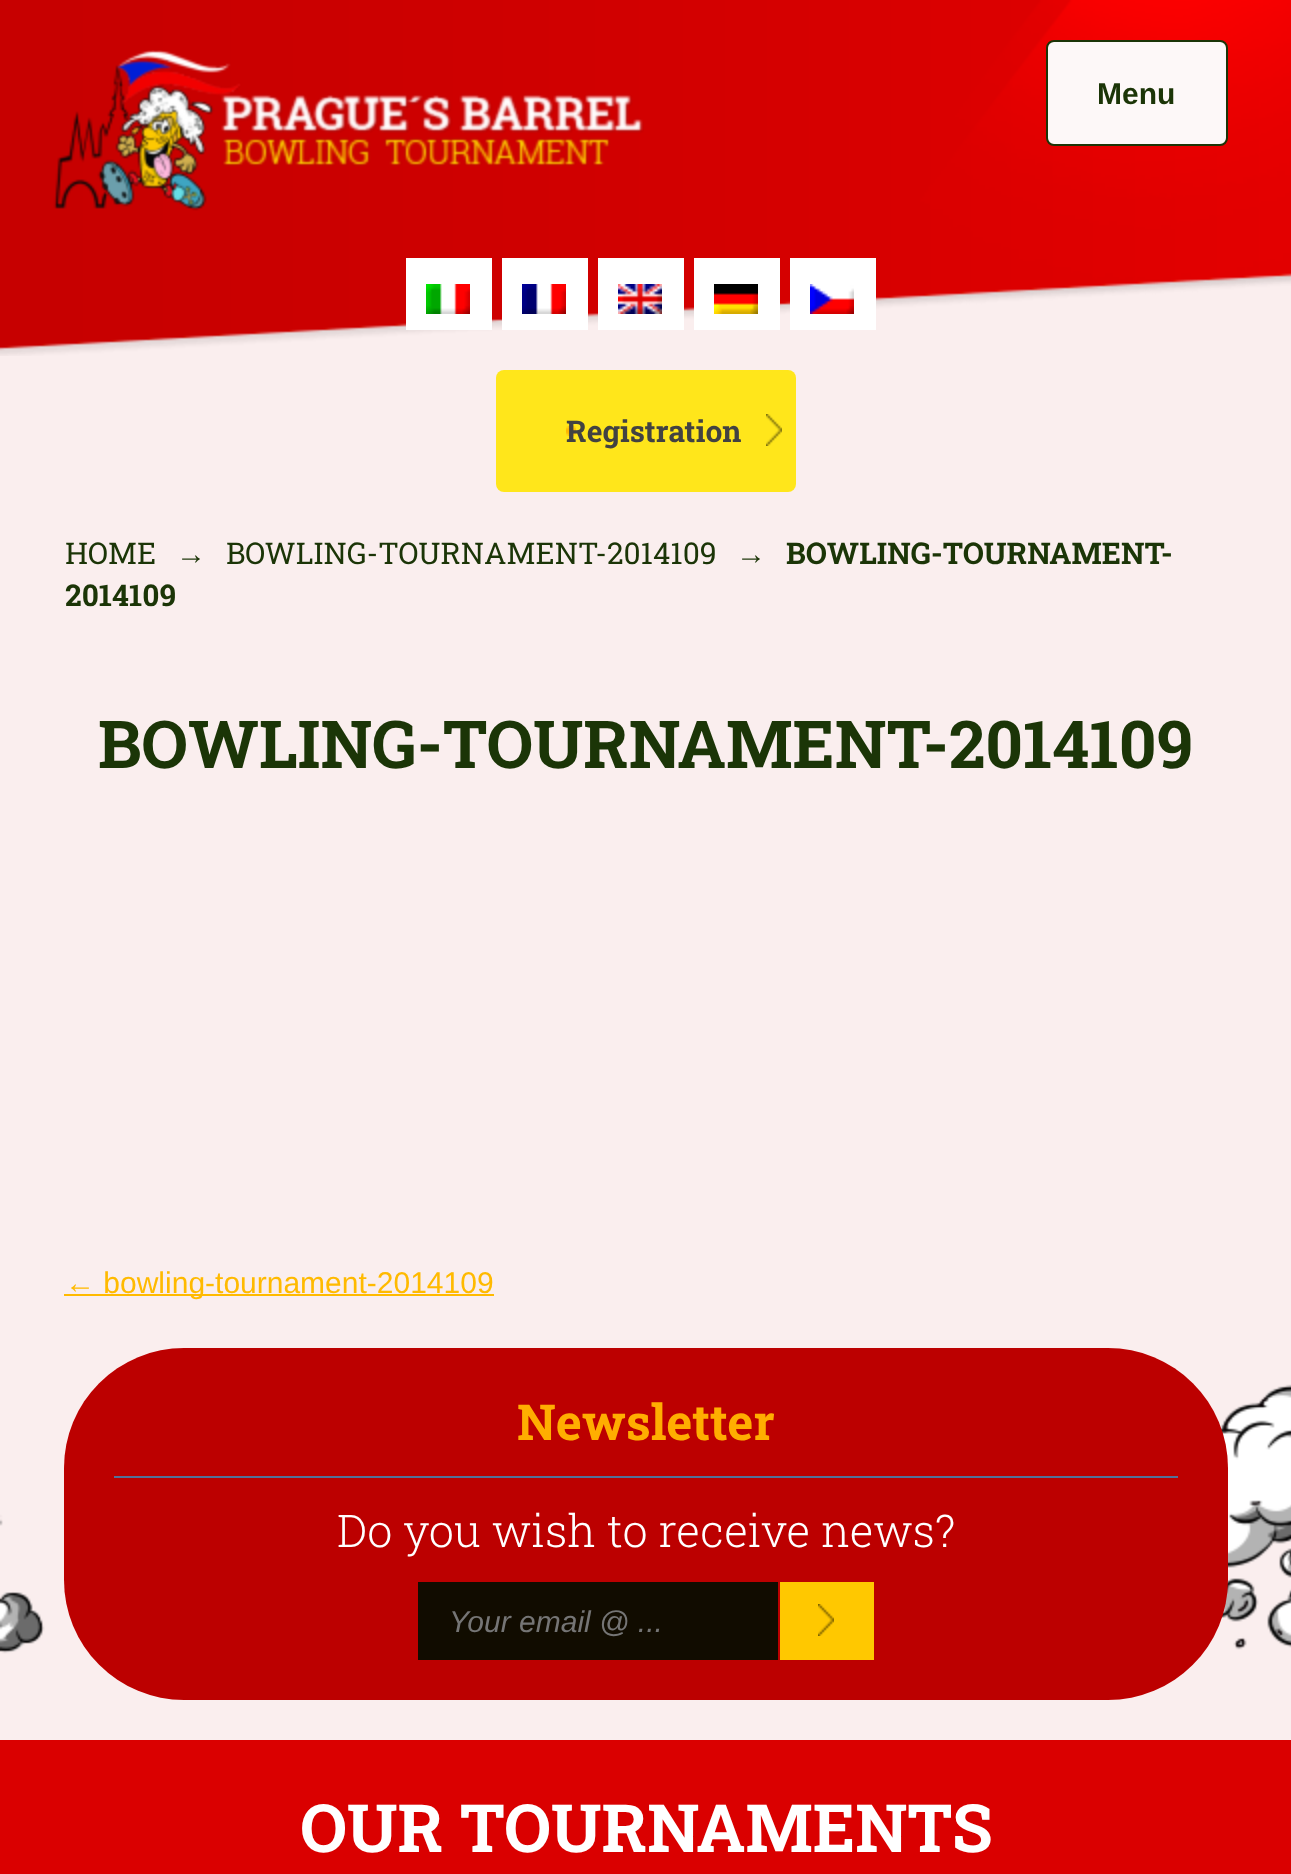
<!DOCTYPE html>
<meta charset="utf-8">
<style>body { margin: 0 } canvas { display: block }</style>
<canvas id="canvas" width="1291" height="1874"></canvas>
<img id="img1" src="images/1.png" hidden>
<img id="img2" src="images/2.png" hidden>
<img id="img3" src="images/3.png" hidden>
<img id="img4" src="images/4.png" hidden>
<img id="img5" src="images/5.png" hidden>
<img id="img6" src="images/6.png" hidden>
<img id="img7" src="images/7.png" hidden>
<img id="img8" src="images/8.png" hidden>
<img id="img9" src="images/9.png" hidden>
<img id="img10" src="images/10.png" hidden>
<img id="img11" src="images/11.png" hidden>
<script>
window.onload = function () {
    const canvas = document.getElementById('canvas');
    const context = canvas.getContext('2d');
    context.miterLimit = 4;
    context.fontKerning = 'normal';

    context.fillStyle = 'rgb(250, 238, 238)';
    context.fillRect(0, 0, 1291, 1874);
    context.drawImage(document.getElementById('img1'), 0, 0, 1291, 356);
    context.drawImage(document.getElementById('img2'), 53, 50, 591, 161);
    context.fillStyle = 'rgb(253, 248, 248)';
    context.beginPath();
    context.roundRect(1047, 41, 180, 104, 7);
    context.fill();
    context.strokeStyle = 'rgb(27, 53, 7)';
    context.lineWidth = 2;
    context.stroke();
    context.fillStyle = 'rgb(255, 255, 255)';
    context.fillRect(406, 258, 86, 72);
    context.drawImage(document.getElementById('img3'), 426, 284, 44, 30);
    context.fillRect(502, 258, 86, 72);
    context.drawImage(document.getElementById('img4'), 522, 284, 44, 30);
    context.fillRect(598, 258, 86, 72);
    context.drawImage(document.getElementById('img5'), 618, 284, 44, 30);
    context.fillRect(694, 258, 86, 72);
    context.drawImage(document.getElementById('img6'), 714, 284, 44, 30);
    context.fillRect(790, 258, 86, 72);
    context.drawImage(document.getElementById('img7'), 810, 284, 44, 30);
    context.fillStyle = 'rgb(255, 230, 27)';
    context.beginPath();
    context.roundRect(496, 370, 300, 122, 8);
    context.fill();
    context.drawImage(document.getElementById('img8'), 566, 426, 10, 10);
    context.drawImage(document.getElementById('img9'), 766, 414, 16, 32);
    context.fillStyle = 'rgb(255, 186, 0)';
    context.fillRect(64, 1294, 430, 2);
    context.drawImage(document.getElementById('img10'), 0, 1384, 1291, 270);
    context.fillStyle = 'rgb(188, 0, 0)';
    context.beginPath();
    context.roundRect(64, 1348, 1164, 352, 120);
    context.fill();
    context.fillStyle = 'rgb(83, 113, 152)';
    context.fillRect(114, 1476, 1064, 2);
    context.fillStyle = 'rgb(17, 12, 0)';
    context.fillRect(418, 1582, 360, 78);
    context.fillStyle = 'rgb(255, 200, 0)';
    context.fillRect(780, 1582, 94, 78);
    context.drawImage(document.getElementById('img11'), 818, 1604, 16, 32);
    context.fillStyle = 'rgb(218, 0, 0)';
    context.fillRect(0, 1740, 1291, 134);
    context.font = 'bold 30px Liberation Sans';
    context.fillStyle = 'rgb(27, 53, 7)';
    context.fillText('Menu', 1097, 104);
    context.font = 'bold 30px Roboto Slab';
    context.fillStyle = 'rgb(66, 66, 66)';
    context.fillText('Registration', 566, 442);
    context.font = '30px Roboto Slab';
    context.fillStyle = 'rgb(27, 53, 7)';
    context.fillText('HOME', 65, 564);
    context.font = '30px Liberation Serif';
    context.fillText('→', 176, 564);
    context.font = '30px Roboto Slab';
    context.fillText('BOWLING-TOURNAMENT-2014109', 226, 564);
    context.font = '30px Liberation Serif';
    context.fillText('→', 736, 564);
    context.font = 'bold 30px Roboto Slab';
    context.fillText('BOWLING-TOURNAMENT-', 786, 564);
    context.fillText('2014109', 65, 606);
    context.font = 'bold 66px Roboto Slab';
    context.fillText('BOWLING-TOURNAMENT-2014109', 98, 768);
    context.font = '30px Liberation Sans';
    context.fillStyle = 'rgb(255, 186, 0)';
    context.fillText('← bowling-tournament-2014109', 65, 1293);
    context.font = 'bold 49.5px Roboto Slab';
    context.fillStyle = 'rgb(255, 174, 0)';
    context.fillText('Newsletter', 517, 1440);
    context.font = '300 45px Roboto Slab';
    context.fillStyle = 'rgb(255, 255, 255)';
    context.fillText('Do you wish to receive news?', 337, 1547);
    context.font = 'italic 30px Liberation Sans';
    context.fillStyle = 'rgb(117, 117, 117)';
    context.fillText('Your email @ ...', 449, 1632);
    context.font = 'bold 66.6px Roboto Slab';
    context.fillStyle = 'rgb(255, 255, 255)';
    context.fillText('OUR TOURNAMENTS', 300, 1852);
};
</script>
